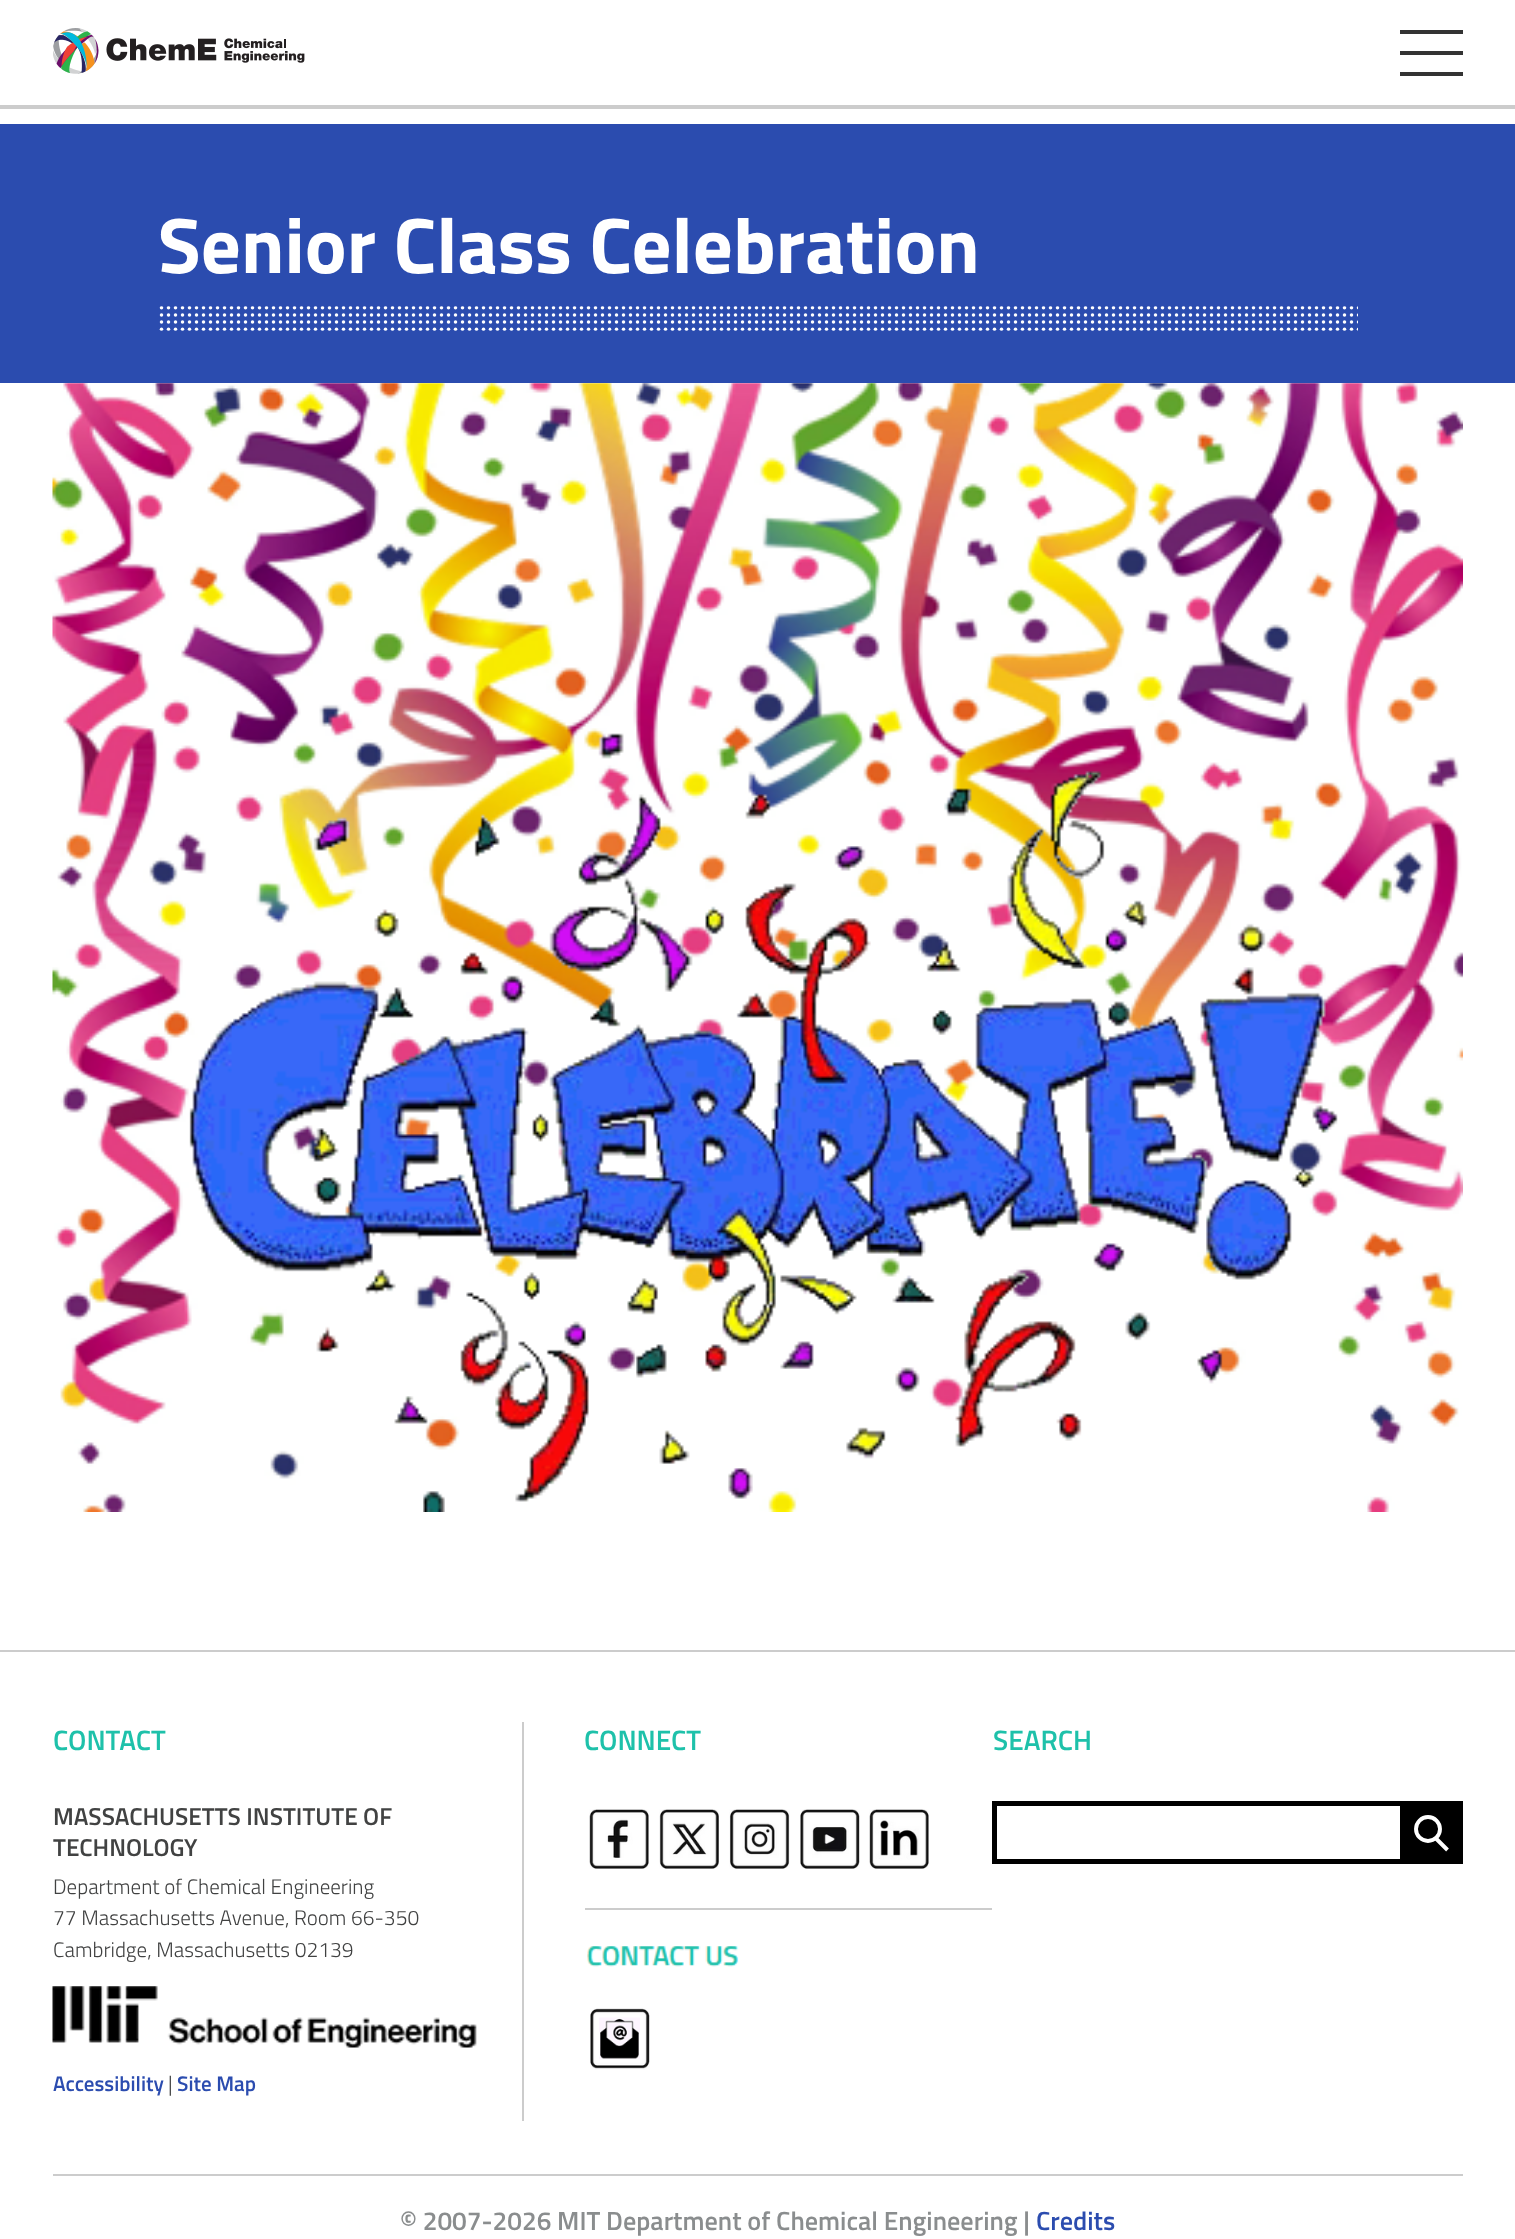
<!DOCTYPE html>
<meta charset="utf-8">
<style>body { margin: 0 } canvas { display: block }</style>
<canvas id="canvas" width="1515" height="2239"></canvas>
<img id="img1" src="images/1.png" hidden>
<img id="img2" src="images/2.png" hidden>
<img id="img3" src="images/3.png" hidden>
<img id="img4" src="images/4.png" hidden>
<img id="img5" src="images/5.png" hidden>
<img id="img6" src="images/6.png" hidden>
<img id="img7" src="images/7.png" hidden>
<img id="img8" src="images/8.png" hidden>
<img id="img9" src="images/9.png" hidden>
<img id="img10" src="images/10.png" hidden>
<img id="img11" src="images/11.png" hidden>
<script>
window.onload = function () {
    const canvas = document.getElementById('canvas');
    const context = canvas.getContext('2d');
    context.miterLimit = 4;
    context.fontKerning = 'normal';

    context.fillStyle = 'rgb(255, 255, 255)';
    context.fillRect(0, 0, 1515, 2239);
    context.fillStyle = 'rgb(204, 204, 204)';
    context.fillRect(0, 105, 1515, 4);
    context.drawImage(document.getElementById('img1'), 53, 28, 252, 46);
    context.fillStyle = 'rgb(51, 51, 51)';
    context.fillRect(1400, 30, 63, 4);
    context.fillRect(1400, 51, 63, 4);
    context.fillRect(1400, 72, 63, 4);
    context.fillStyle = 'rgb(43, 76, 175)';
    context.fillRect(0, 124, 1515, 259);
    context.drawImage(document.getElementById('img2'), 159, 306, 1199, 25);
    context.drawImage(document.getElementById('img3'), 52, 383, 1411, 1129);
    context.fillStyle = 'rgb(204, 204, 204)';
    context.fillRect(0, 1650, 1515, 2);
    context.fillRect(53, 2174, 1410, 2);
    context.fillRect(522, 1722, 2, 399);
    context.drawImage(document.getElementById('img4'), 52, 1986, 425, 62);
    context.drawImage(document.getElementById('img5'), 589, 1809, 60, 60);
    context.drawImage(document.getElementById('img6'), 659, 1809, 60, 60);
    context.drawImage(document.getElementById('img7'), 729, 1809, 61, 60);
    context.drawImage(document.getElementById('img8'), 800, 1809, 60, 60);
    context.drawImage(document.getElementById('img9'), 869, 1809, 60, 60);
    context.fillRect(585, 1908, 407, 2);
    context.drawImage(document.getElementById('img10'), 587, 1946, 152, 21);
    context.drawImage(document.getElementById('img11'), 590, 2008, 60, 62);
    context.fillStyle = 'rgb(0, 0, 0)';
    context.fillRect(992, 1801, 408, 5);
    context.fillRect(992, 1859, 408, 5);
    context.fillRect(992, 1801, 5, 63);
    context.fillRect(1400, 1801, 63, 63);
    context.beginPath();
    context.arc(1428, 1829, 12, 0, 2 * Math.PI);
    context.strokeStyle = 'rgb(255, 255, 255)';
    context.lineWidth = 3.9;
    context.stroke();
    context.beginPath();
    context.moveTo(1435, 1837.5);
    context.lineTo(1447.5, 1850);
    context.stroke();
    context.font = 'bold 78.75px Titillium Web';
    context.fillStyle = 'rgb(255, 255, 255)';
    context.fillText('Senior Class Celebration', 158, 273);
    context.font = '600 28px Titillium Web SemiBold';
    context.fillStyle = 'rgb(30, 193, 170)';
    context.fillText('CONTACT', 53, 1750);
    context.font = '600 24.5px Titillium Web SemiBold';
    context.fillStyle = 'rgb(65, 66, 66)';
    context.fillText('MASSACHUSETTS INSTITUTE OF', 53, 1825);
    context.fillText('TECHNOLOGY', 53, 1856);
    context.font = '300 21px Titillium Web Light';
    context.fillText('Department of Chemical Engineering', 53, 1894);
    context.fillText('77 Massachusetts Avenue, Room 66-350', 53, 1925);
    context.fillText('Cambridge, Massachusetts 02139', 53, 1957);
    context.font = '600 21px Titillium Web SemiBold';
    context.fillStyle = 'rgb(43, 76, 175)';
    context.fillText('Accessibility', 53, 2091);
    context.font = '300 21px Titillium Web Light';
    context.fillStyle = 'rgb(65, 66, 66)';
    context.fillText('|', 168, 2091);
    context.font = '600 21px Titillium Web SemiBold';
    context.fillStyle = 'rgb(43, 76, 175)';
    context.fillText('Site Map', 177, 2091);
    context.font = '600 28px Titillium Web SemiBold';
    context.fillStyle = 'rgb(30, 193, 170)';
    context.fillText('CONNECT', 584, 1750);
    context.fillText('SEARCH', 993, 1750);
    context.font = '600 26.25px Titillium Web SemiBold';
    context.fillStyle = 'rgb(138, 141, 142)';
    context.fillText('© 2007-2026 MIT Department of Chemical Engineering |', 400, 2230);
    context.fillStyle = 'rgb(43, 76, 175)';
    context.fillText('Credits', 1036, 2230);
};
</script>
